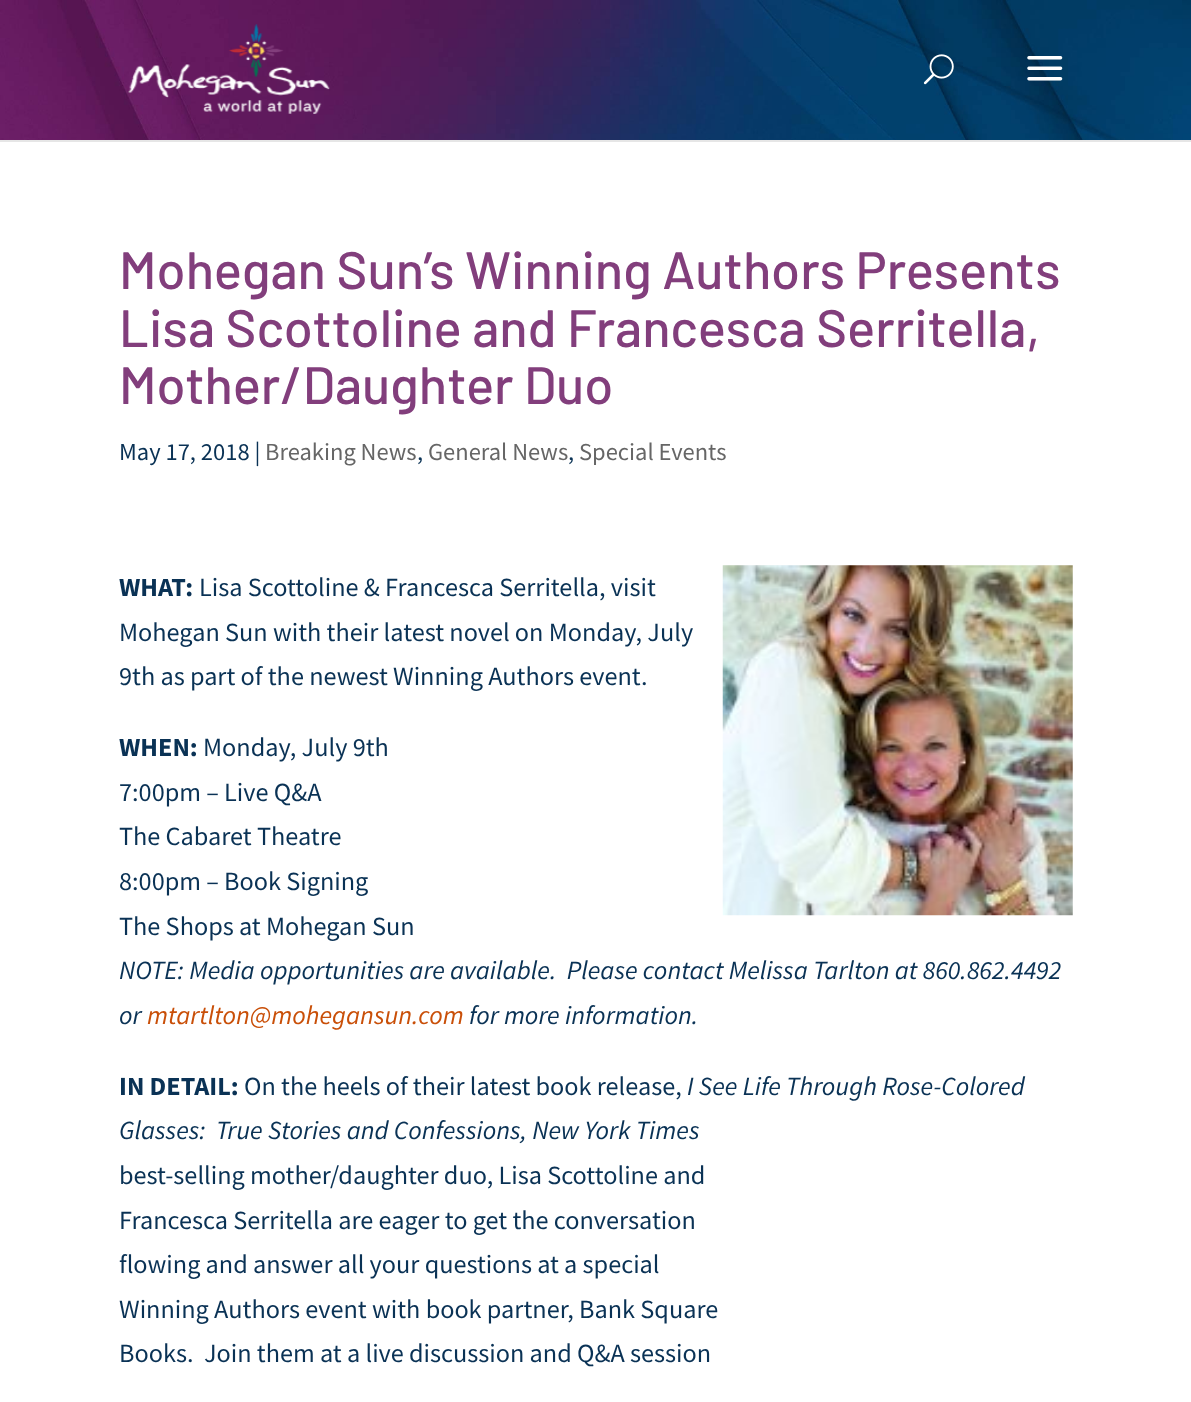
<!DOCTYPE html>
<meta charset="utf-8">
<style>body { margin: 0 } canvas { display: block }</style>
<canvas id="canvas" width="1191" height="1402"></canvas>
<img id="img1" src="images/1.png" hidden>
<img id="img2" src="images/2.png" hidden>
<img id="img3" src="images/3.png" hidden>
<img id="img4" src="images/4.png" hidden>
<img id="img5" src="images/5.png" hidden>
<script>
window.onload = function () {
    const canvas = document.getElementById('canvas');
    const context = canvas.getContext('2d');
    context.miterLimit = 4;
    context.fontKerning = 'normal';

    context.fillStyle = 'rgb(255, 255, 255)';
    context.fillRect(0, 0, 1191, 1402);
    context.fillStyle = 'rgb(230, 230, 230)';
    context.beginPath();
    context.moveTo(0, 140);
    context.lineTo(0, 142);
    context.lineTo(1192, 142);
    context.lineTo(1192, 2);
    context.lineTo(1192, 140);
    context.closePath();
    context.fill();
    context.drawImage(document.getElementById('img1'), 0, 0, 1191, 140);
    context.drawImage(document.getElementById('img2'), 128, 24, 202, 90);
    context.drawImage(document.getElementById('img3'), 923, 54, 31, 31);
    context.drawImage(document.getElementById('img4'), 1027, 56, 36, 25);
    context.drawImage(document.getElementById('img5'), 722, 565, 351, 351);
    context.font = '500 52.5px Barlow';
    context.fillStyle = 'rgb(130, 62, 124)';
    context.fillText('Mohegan Sun’s Winning Authors Presents', 119, 289);
    context.fillText('Lisa Scottoline and Francesca Serritella,', 119, 347);
    context.fillText('Mother/Daughter Duo', 119, 404);
    context.font = '24.5px Source Sans Pro';
    context.fillStyle = 'rgb(10, 50, 85)';
    context.fillText('May 17, 2018 |', 119, 460);
    context.fillStyle = 'rgb(102, 102, 102)';
    context.fillText('Breaking News', 265, 460);
    context.fillStyle = 'rgb(10, 50, 85)';
    context.fillText(',', 417, 460);
    context.fillStyle = 'rgb(102, 102, 102)';
    context.fillText('General News', 428, 460);
    context.fillStyle = 'rgb(10, 50, 85)';
    context.fillText(',', 568, 460);
    context.fillStyle = 'rgb(102, 102, 102)';
    context.fillText('Special Events', 579, 460);
    context.font = 'bold 26.25px Source Sans Pro';
    context.fillStyle = 'rgb(10, 50, 85)';
    context.fillText('WHAT:', 119, 596);
    context.font = '26.25px Source Sans Pro';
    context.fillText('Lisa Scottoline & Francesca Serritella, visit', 199, 596);
    context.fillText('Mohegan Sun with their latest novel on Monday, July', 119, 641);
    context.fillText('9th as part of the newest Winning Authors event.', 119, 685);
    context.font = 'bold 26.25px Source Sans Pro';
    context.fillText('WHEN:', 119, 756);
    context.font = '26.25px Source Sans Pro';
    context.fillText('Monday, July 9th', 203, 756);
    context.fillText('7:00pm – Live Q&A', 119, 801);
    context.fillText('The Cabaret Theatre', 119, 845);
    context.fillText('8:00pm – Book Signing', 119, 890);
    context.fillText('The Shops at Mohegan Sun', 119, 935);
    context.font = 'italic 26.25px Source Sans Pro';
    context.fillText('NOTE: Media opportunities are available.  Please contact Melissa Tarlton at 860.862.4492', 119, 979);
    context.fillText('or', 119, 1024);
    context.fillStyle = 'rgb(201, 79, 8)';
    context.fillText('mtartlton@mohegansun.com', 147, 1024);
    context.fillStyle = 'rgb(10, 50, 85)';
    context.fillText('for more information.', 469, 1024);
    context.font = 'bold 26.25px Source Sans Pro';
    context.fillText('IN DETAIL:', 119, 1095);
    context.font = '26.25px Source Sans Pro';
    context.fillText('On the heels of their latest book release,', 244, 1095);
    context.font = 'italic 26.25px Source Sans Pro';
    context.fillText('I See Life Through Rose-Colored', 687, 1095);
    context.fillText('Glasses:', 119, 1139);
    context.fillText('True Stories and Confessions, New York Times', 216, 1139);
    context.font = '26.25px Source Sans Pro';
    context.fillText('best-selling mother/daughter duo, Lisa Scottoline and', 119, 1184);
    context.fillText('Francesca Serritella are eager to get the conversation', 119, 1229);
    context.fillText('flowing and answer all your questions at a special', 119, 1273);
    context.fillText('Winning Authors event with book partner, Bank Square', 119, 1318);
    context.fillText('Books.  Join them at a live discussion and Q&A session', 119, 1362);
};
</script>
